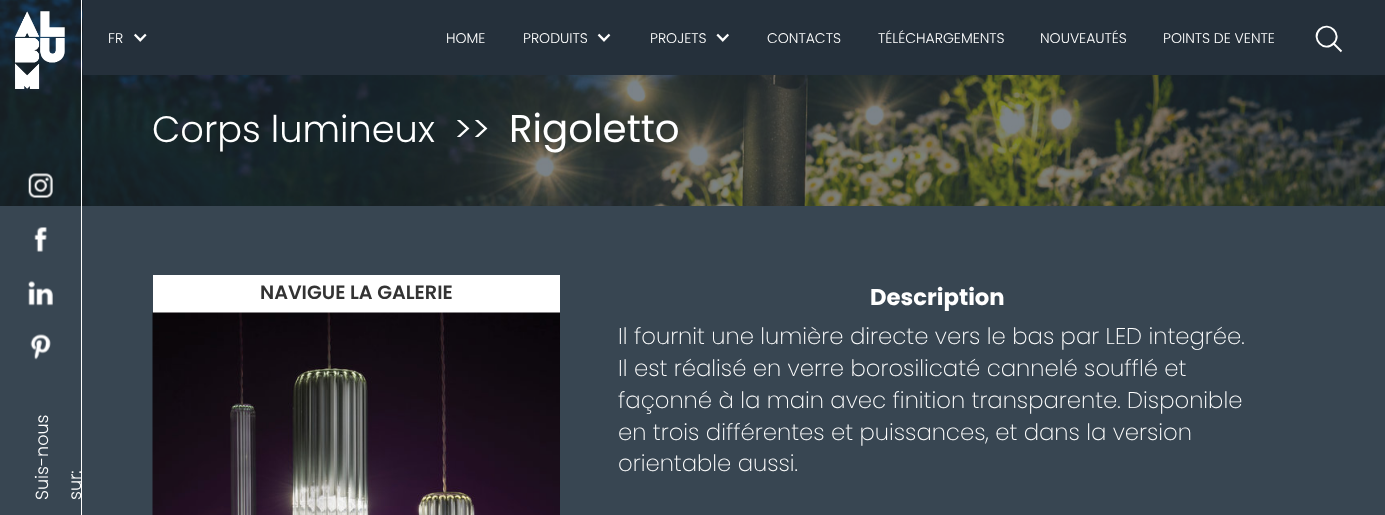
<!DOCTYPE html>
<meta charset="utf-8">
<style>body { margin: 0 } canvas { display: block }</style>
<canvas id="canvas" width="1385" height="515"></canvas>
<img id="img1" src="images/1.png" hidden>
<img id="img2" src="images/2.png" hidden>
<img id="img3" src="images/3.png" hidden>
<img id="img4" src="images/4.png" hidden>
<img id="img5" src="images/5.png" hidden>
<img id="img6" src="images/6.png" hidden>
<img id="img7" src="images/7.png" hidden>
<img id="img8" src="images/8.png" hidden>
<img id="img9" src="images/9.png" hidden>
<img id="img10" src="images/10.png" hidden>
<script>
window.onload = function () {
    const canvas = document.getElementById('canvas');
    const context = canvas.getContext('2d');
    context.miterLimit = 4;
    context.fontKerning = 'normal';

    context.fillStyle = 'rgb(255, 255, 255)';
    context.fillRect(0, 0, 1385, 515);
    context.drawImage(document.getElementById('img1'), 0, 0, 1385, 206);
    context.fillStyle = 'rgba(37, 48, 59, 0.6)';
    context.fillRect(0, 0, 1385, 206);
    context.fillStyle = 'rgb(37, 48, 59)';
    context.fillRect(83, 0, 1302, 75);
    context.drawImage(document.getElementById('img2'), 134, 33, 13, 9);
    context.drawImage(document.getElementById('img3'), 597, 33, 14, 9);
    context.drawImage(document.getElementById('img4'), 716, 33, 13, 9);
    context.beginPath();
    context.moveTo(1333.5, 43.5);
    context.bezierCurveTo(1324.5, 53, 1310.5, 39, 1319.5, 29.5);
    context.bezierCurveTo(1329, 20.5, 1343, 34.5, 1333.5, 43.5);
    context.lineTo(1341.5, 51.5);
    context.strokeStyle = 'rgb(255, 255, 255)';
    context.lineWidth = 1.9;
    context.stroke();
    context.fillStyle = 'rgb(56, 70, 82)';
    context.fillRect(0, 206, 1385, 309);
    context.fillStyle = 'rgb(255, 255, 255)';
    context.fillRect(81, 0, 1, 515);
    context.drawImage(document.getElementById('img5'), 15, 11, 50, 78);
    context.drawImage(document.getElementById('img6'), 28, 173, 25, 25);
    context.drawImage(document.getElementById('img7'), 34, 227, 13, 25);
    context.drawImage(document.getElementById('img8'), 28, 280, 25, 26);
    context.drawImage(document.getElementById('img9'), 30, 334, 21, 26);
    context.fillRect(153, 275, 407, 38);
    context.drawImage(document.getElementById('img10'), 152, 312, 408, 203);
    context.font = '300 14px Poppins';
    context.fillText('FR', 108, 43);
    context.fillText('HOME', 446, 43);
    context.fillText('PRODUITS', 523, 43);
    context.fillText('PROJETS', 650, 43);
    context.fillText('CONTACTS', 767, 43);
    context.fillText('TÉLÉCHARGEMENTS', 878, 43);
    context.fillText('NOUVEAUTÉS', 1040, 43);
    context.fillText('POINTS DE VENTE', 1163, 43);
    context.font = '300 17.5px Poppins';
    context.save();
    context.translate(48, 500);
    context.rotate(-90 * Math.PI / 180);
    context.fillText('Suis-nous', 0, 0);
    context.restore();
    context.save();
    context.translate(81, 500);
    context.rotate(-90 * Math.PI / 180);
    context.fillText('sur:', 0, 0);
    context.restore();
    context.font = '300 36.75px Poppins';
    context.fillText('Corps lumineux', 152, 142);
    context.fillText('>>', 454, 142);
    context.font = '38.75px Poppins';
    context.fillText('Rigoletto', 509, 142);
    context.font = '600 19.25px Poppins';
    context.fillStyle = 'rgb(51, 51, 51)';
    context.fillText('NAVIGUE LA GALERIE', 260, 299);
    context.font = 'bold 22.75px Poppins';
    context.fillStyle = 'rgb(255, 255, 255)';
    context.fillText('Description', 870, 305);
    context.font = '200 22.75px Poppins';
    context.fillText('Il fournit une lumière directe vers le bas par LED integrée.', 618, 344);
    context.fillText('Il est réalisé en verre borosilicaté cannelé soufflé et', 618, 376);
    context.fillText('façonné à la main avec finition transparente. Disponible', 618, 408);
    context.fillText('en trois différentes et puissances, et dans la version', 618, 440);
    context.fillText('orientable aussi.', 618, 471);
};
</script>
